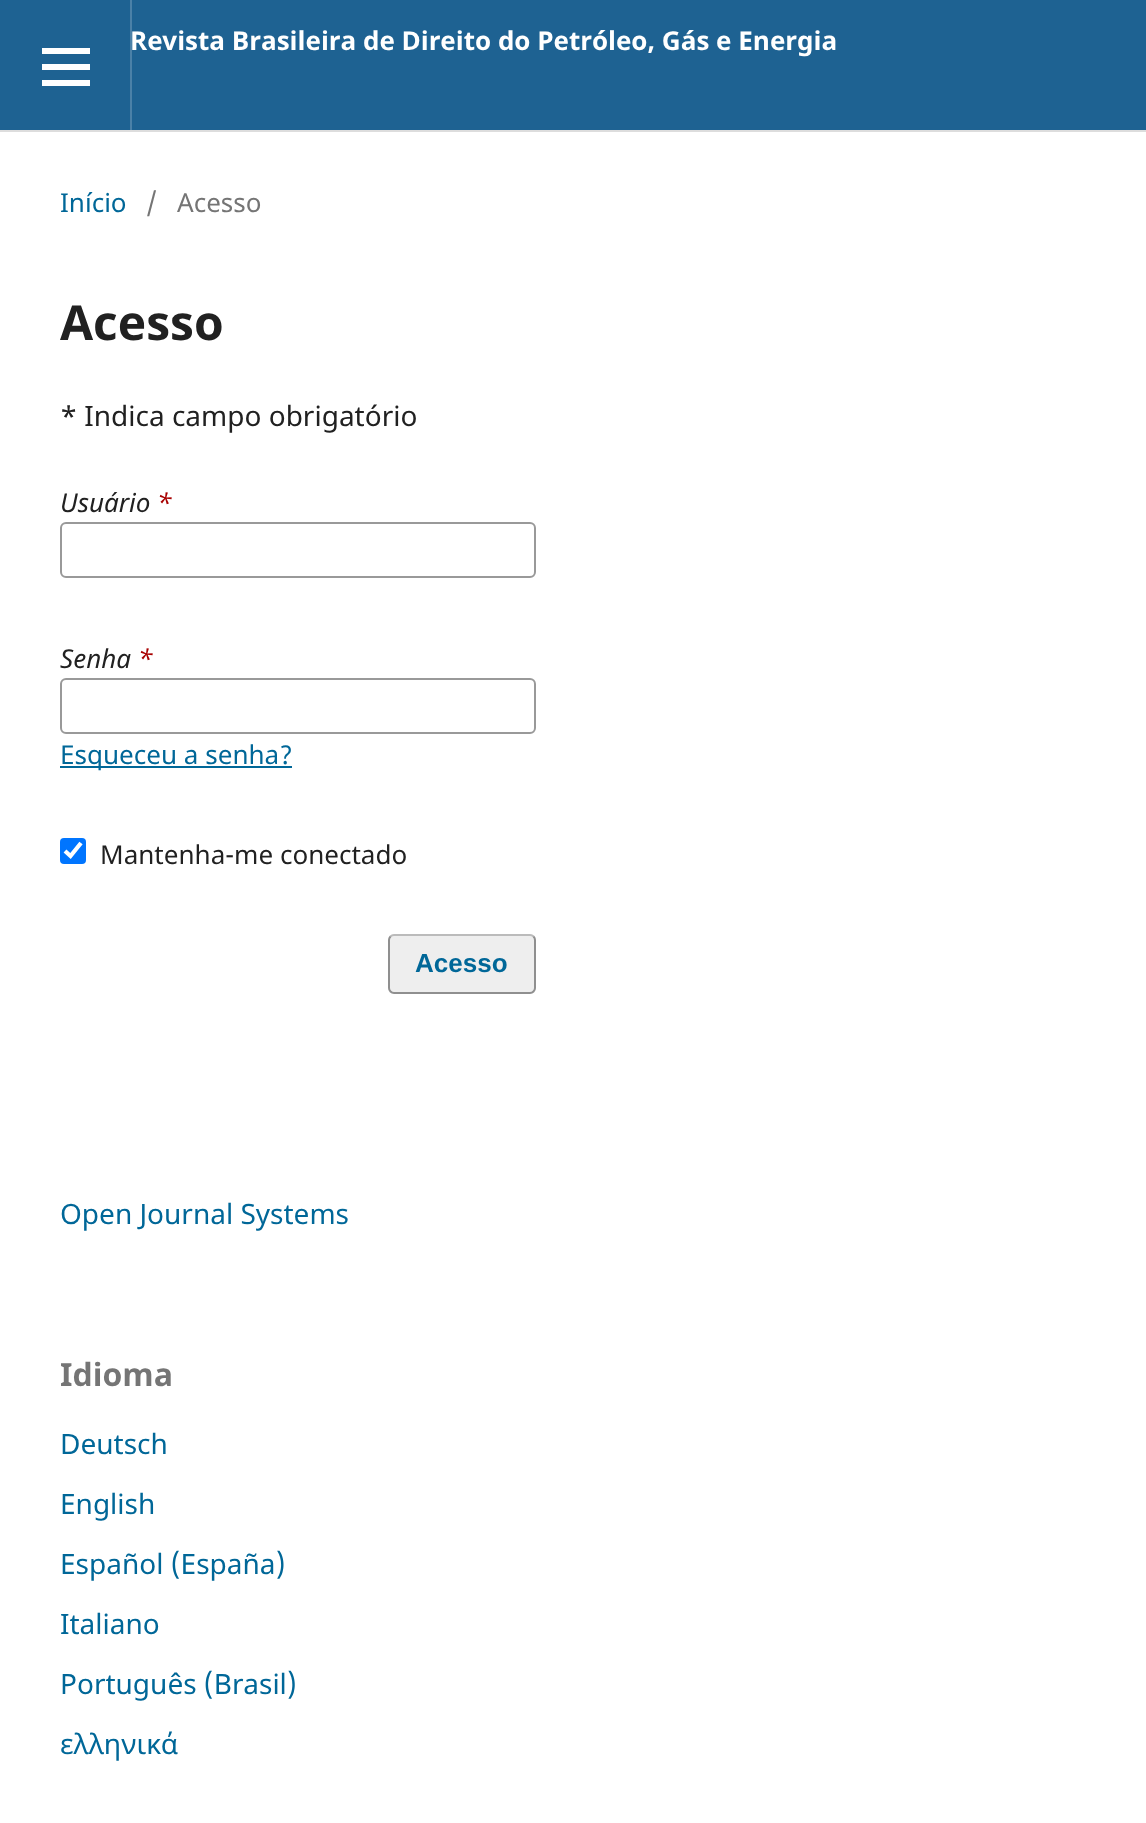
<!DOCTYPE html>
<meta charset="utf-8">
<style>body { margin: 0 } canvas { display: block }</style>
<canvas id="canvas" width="1146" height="1823"></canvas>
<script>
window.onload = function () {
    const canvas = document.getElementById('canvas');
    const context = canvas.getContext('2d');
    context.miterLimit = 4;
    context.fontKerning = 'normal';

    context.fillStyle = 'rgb(255, 255, 255)';
    context.fillRect(0, 0, 1146, 1823);
    context.fillStyle = 'rgb(30, 98, 146)';
    context.fillRect(0, 0, 1146, 130);
    context.fillStyle = 'rgb(221, 221, 221)';
    context.fillRect(0, 130, 1146, 2);
    context.fillStyle = 'rgb(75, 129, 168)';
    context.fillRect(130, 0, 2, 130);
    context.fillStyle = 'rgb(255, 255, 255)';
    context.fillRect(42, 80, 48, 6);
    context.fillRect(42, 48, 48, 6);
    context.fillRect(42, 64, 48, 6);
    context.beginPath();
    context.roundRect(61, 523, 474, 54, 5);
    context.strokeStyle = 'rgb(153, 153, 153)';
    context.lineWidth = 2;
    context.stroke();
    context.beginPath();
    context.roundRect(61, 679, 474, 54, 5);
    context.stroke();
    context.fillStyle = 'rgb(0, 103, 152)';
    context.fillRect(60, 766, 232, 2);
    context.fillStyle = 'rgb(0, 117, 255)';
    context.beginPath();
    context.roundRect(60, 838, 26, 26, 4);
    context.fill();
    context.beginPath();
    context.moveTo(65, 851);
    context.lineTo(70.5, 856);
    context.lineTo(81, 843);
    context.strokeStyle = 'rgb(255, 255, 255)';
    context.lineWidth = 4.2;
    context.stroke();
    context.fillStyle = 'rgb(238, 238, 238)';
    context.beginPath();
    context.roundRect(388, 934, 148, 60, 6);
    context.fill();
    context.beginPath();
    context.moveTo(390.5, 936.5);
    context.bezierCurveTo(391.5, 935.5, 392.5, 935, 394, 935);
    context.lineTo(530, 935);
    context.bezierCurveTo(531.5, 935, 532.5, 935.5, 533.5, 936.5);
    context.strokeStyle = 'rgb(187, 187, 187)';
    context.lineWidth = 2;
    context.stroke();
    context.beginPath();
    context.moveTo(533.5, 936.5);
    context.bezierCurveTo(534.5, 937.5, 535, 938.5, 535, 940);
    context.lineTo(535, 988);
    context.bezierCurveTo(535, 989.5, 534.5, 990.5, 533.5, 991.5);
    context.bezierCurveTo(532.5, 992.5, 531.5, 993, 530, 993);
    context.lineTo(394, 993);
    context.bezierCurveTo(392.5, 993, 391.5, 992.5, 390.5, 991.5);
    context.bezierCurveTo(389.5, 990.5, 389, 989.5, 389, 988);
    context.lineTo(389, 940);
    context.bezierCurveTo(389, 938.5, 389.5, 937.5, 390.5, 936.5);
    context.strokeStyle = 'rgba(0, 0, 0, 0.4)';
    context.stroke();
    context.font = 'bold 26.05px Noto Sans';
    context.fillStyle = 'rgb(255, 255, 255)';
    context.fillText('Revista Brasileira de Direito do Petróleo, Gás e Energia', 130, 50);
    context.font = '26.05px Noto Sans';
    context.fillStyle = 'rgb(0, 103, 152)';
    context.fillText('Início', 60, 212);
    context.fillStyle = 'rgb(117, 117, 117)';
    context.fillText('/', 146, 212);
    context.fillText('Acesso', 177, 212);
    context.font = 'bold 48px Noto Sans';
    context.fillStyle = 'rgb(33, 33, 33)';
    context.fillText('Acesso', 60, 340);
    context.font = '28px Noto Sans';
    context.fillText('* Indica campo obrigatório', 60, 426);
    context.font = 'italic 26.05px Noto Sans';
    context.fillText('Usuário', 60, 512);
    context.fillStyle = 'rgb(168, 0, 0)';
    context.fillText('*', 157, 512);
    context.fillStyle = 'rgb(33, 33, 33)';
    context.fillText('Senha', 60, 668);
    context.fillStyle = 'rgb(168, 0, 0)';
    context.fillText('*', 138, 668);
    context.font = '26.05px Noto Sans';
    context.fillStyle = 'rgb(0, 103, 152)';
    context.fillText('Esqueceu a senha?', 60, 764);
    context.fillStyle = 'rgb(33, 33, 33)';
    context.fillText('Mantenha-me conectado', 100, 864);
    context.font = 'bold 26.05px Liberation Sans';
    context.fillStyle = 'rgb(0, 103, 152)';
    context.fillText('Acesso', 415, 972);
    context.font = '28px Noto Sans';
    context.fillText('Open Journal Systems', 60, 1224);
    context.font = 'bold 32px Noto Sans';
    context.fillStyle = 'rgb(117, 117, 117)';
    context.fillText('Idioma', 60, 1386);
    context.font = '28px Noto Sans';
    context.fillStyle = 'rgb(0, 103, 152)';
    context.fillText('Deutsch', 60, 1454);
    context.fillText('English', 60, 1514);
    context.fillText('Español (España)', 60, 1574);
    context.fillText('Italiano', 60, 1634);
    context.fillText('Português (Brasil)', 60, 1694);
    context.fillText('ελληνικά', 60, 1754);
};
</script>
